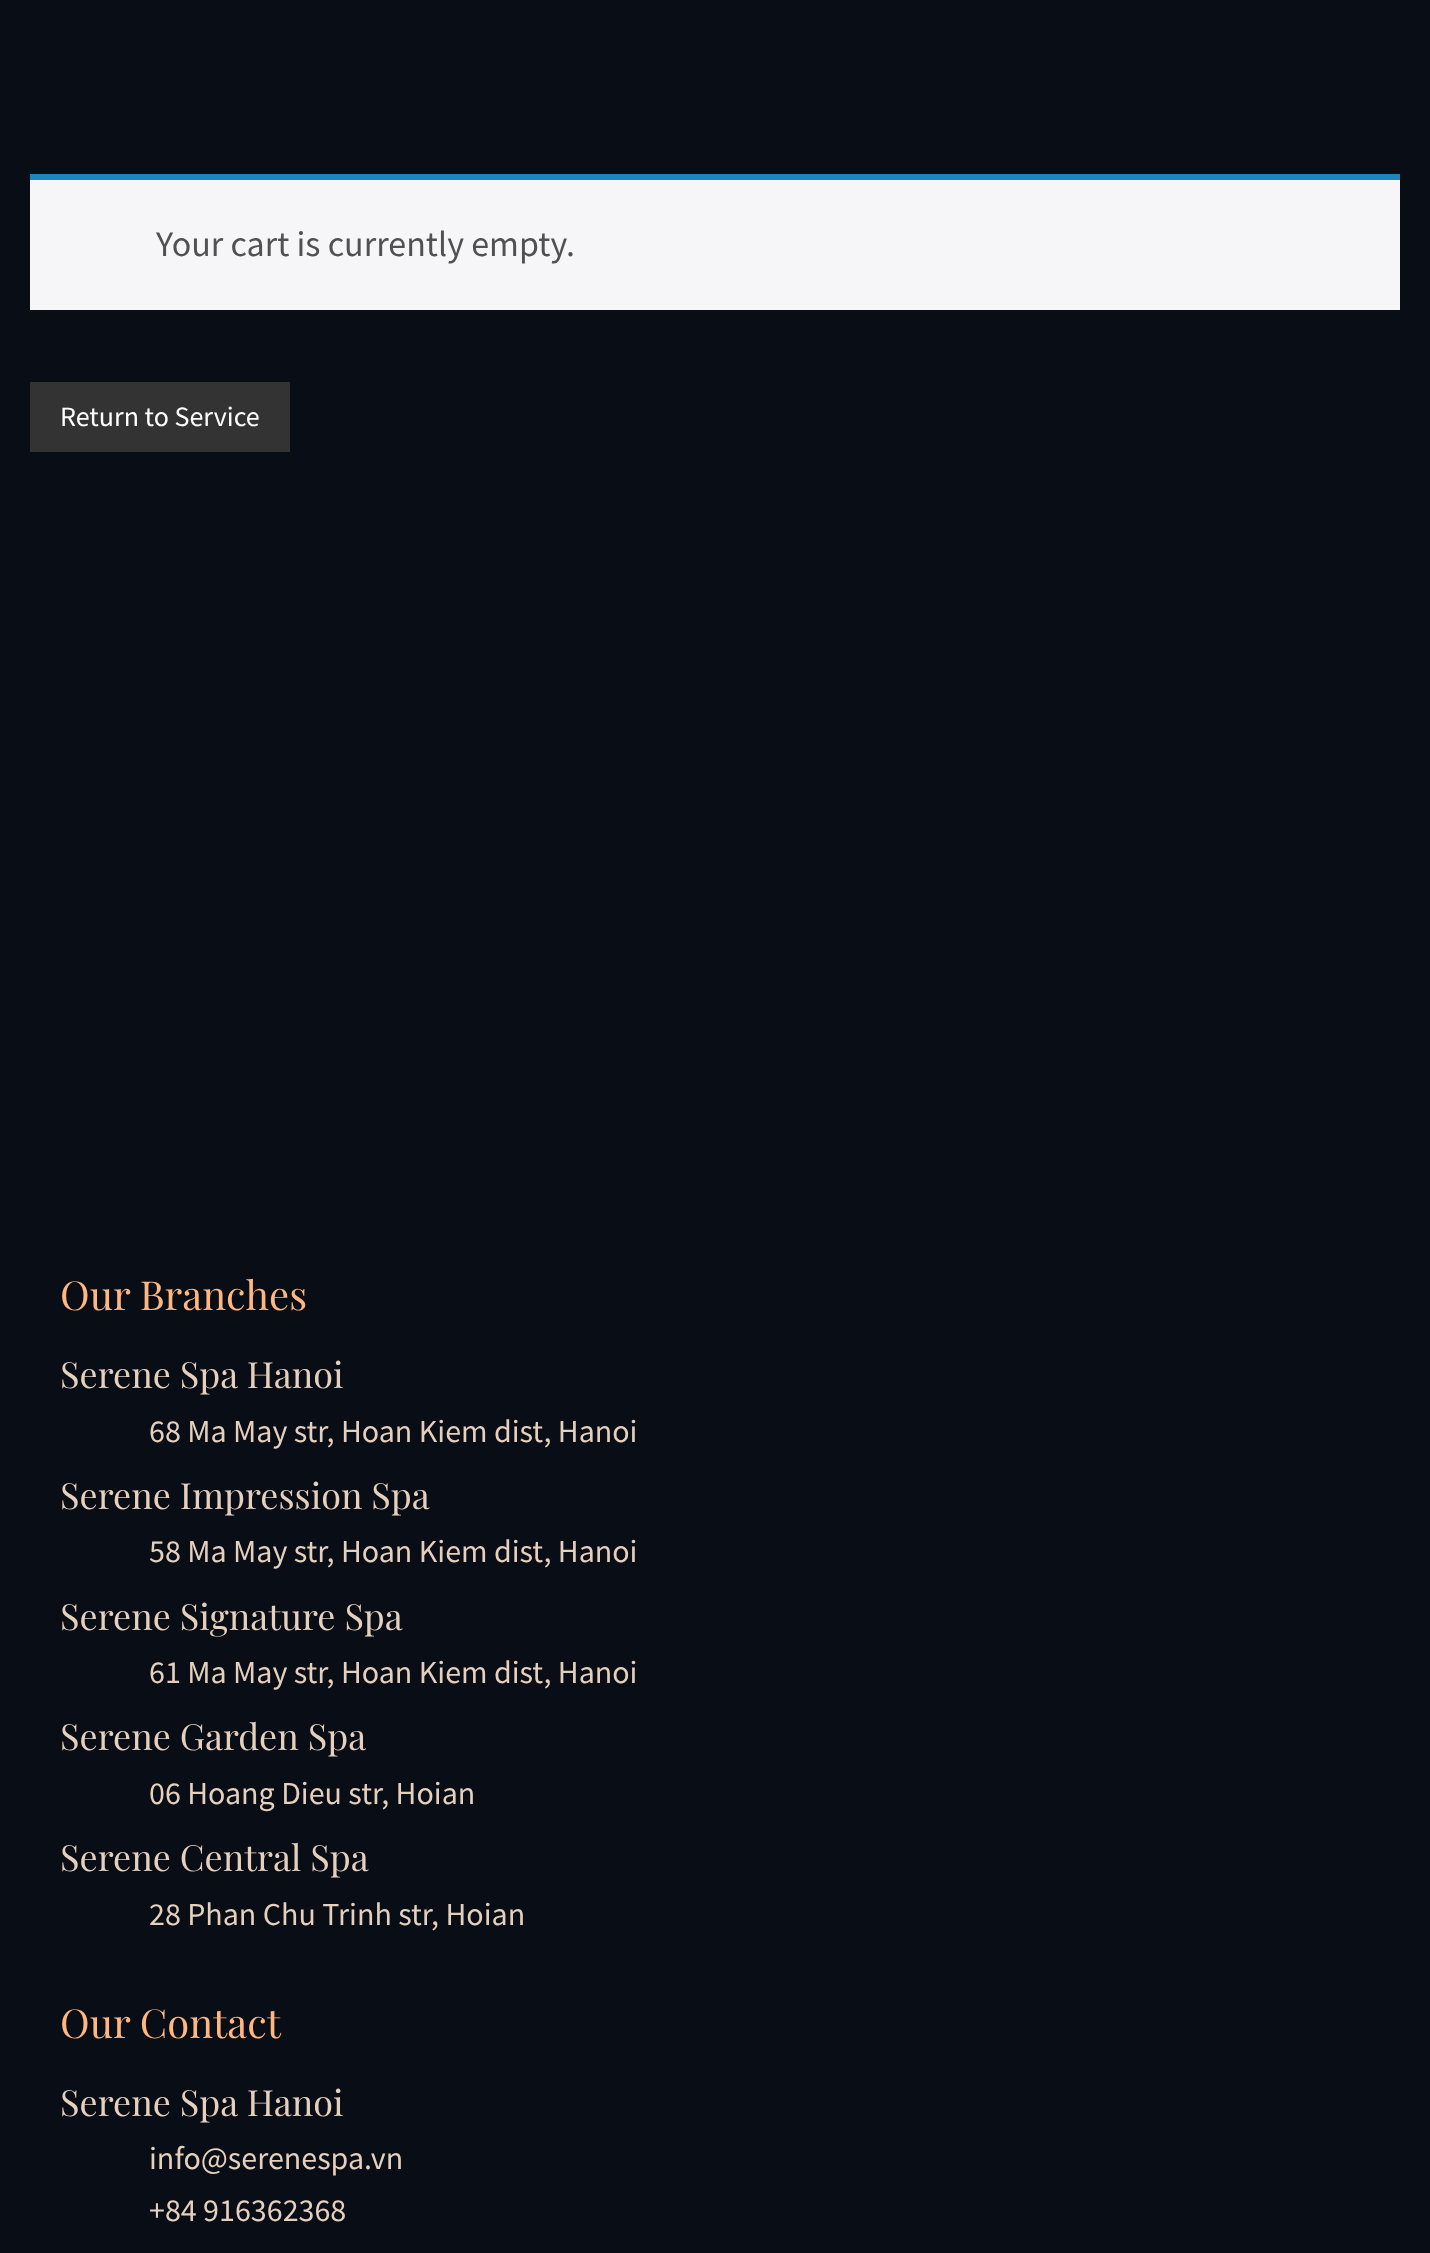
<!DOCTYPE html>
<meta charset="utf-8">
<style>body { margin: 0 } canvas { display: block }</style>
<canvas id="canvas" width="1430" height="2253"></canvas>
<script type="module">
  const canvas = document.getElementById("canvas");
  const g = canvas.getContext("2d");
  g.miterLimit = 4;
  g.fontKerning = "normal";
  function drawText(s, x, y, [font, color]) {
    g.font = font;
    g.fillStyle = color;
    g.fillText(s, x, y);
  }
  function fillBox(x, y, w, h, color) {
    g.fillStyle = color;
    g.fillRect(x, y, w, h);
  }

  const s1 = ["36px Source Sans Pro", "#515151"];
  const s2 = ["28px Source Sans Pro", "#FFFFFF"];
  const s3 = ["40px Playfair Display", "#FFB67F"];
  const s4 = ["36px Playfair Display", "#E5CFBD"];
  const s5 = ["32px Source Sans Pro", "#E5CFBD"];

  fillBox(0, 0, 1430, 2253, "#080D16");
  fillBox(30, 180, 1370, 130, "#F6F5F8");
  fillBox(30, 174, 1370, 6, "#1E85BE");
  drawText("Your cart is currently empty.", 156, 256, s1);
  fillBox(30, 382, 260, 70, "#333333");
  drawText("Return to Service", 60, 426, s2);
  drawText("Our Branches", 60, 1310, s3);
  drawText("Serene Spa Hanoi", 60, 1388, s4);
  drawText("68 Ma May str, Hoan Kiem dist, Hanoi", 149, 1442, s5);
  drawText("Serene Impression Spa", 60, 1509, s4);
  drawText("58 Ma May str, Hoan Kiem dist, Hanoi", 149, 1562, s5);
  drawText("Serene Signature Spa", 60, 1630, s4);
  drawText("61 Ma May str, Hoan Kiem dist, Hanoi", 149, 1683, s5);
  drawText("Serene Garden Spa", 60, 1750, s4);
  drawText("06 Hoang Dieu str, Hoian", 149, 1804, s5);
  drawText("Serene Central Spa", 60, 1871, s4);
  drawText("28 Phan Chu Trinh str, Hoian", 149, 1925, s5);
  drawText("Our Contact", 60, 2038, s3);
  drawText("Serene Spa Hanoi", 60, 2116, s4);
  drawText("info@serenespa.vn", 149, 2169, s5);
  drawText("+84 916362368", 149, 2221, s5);
</script>
